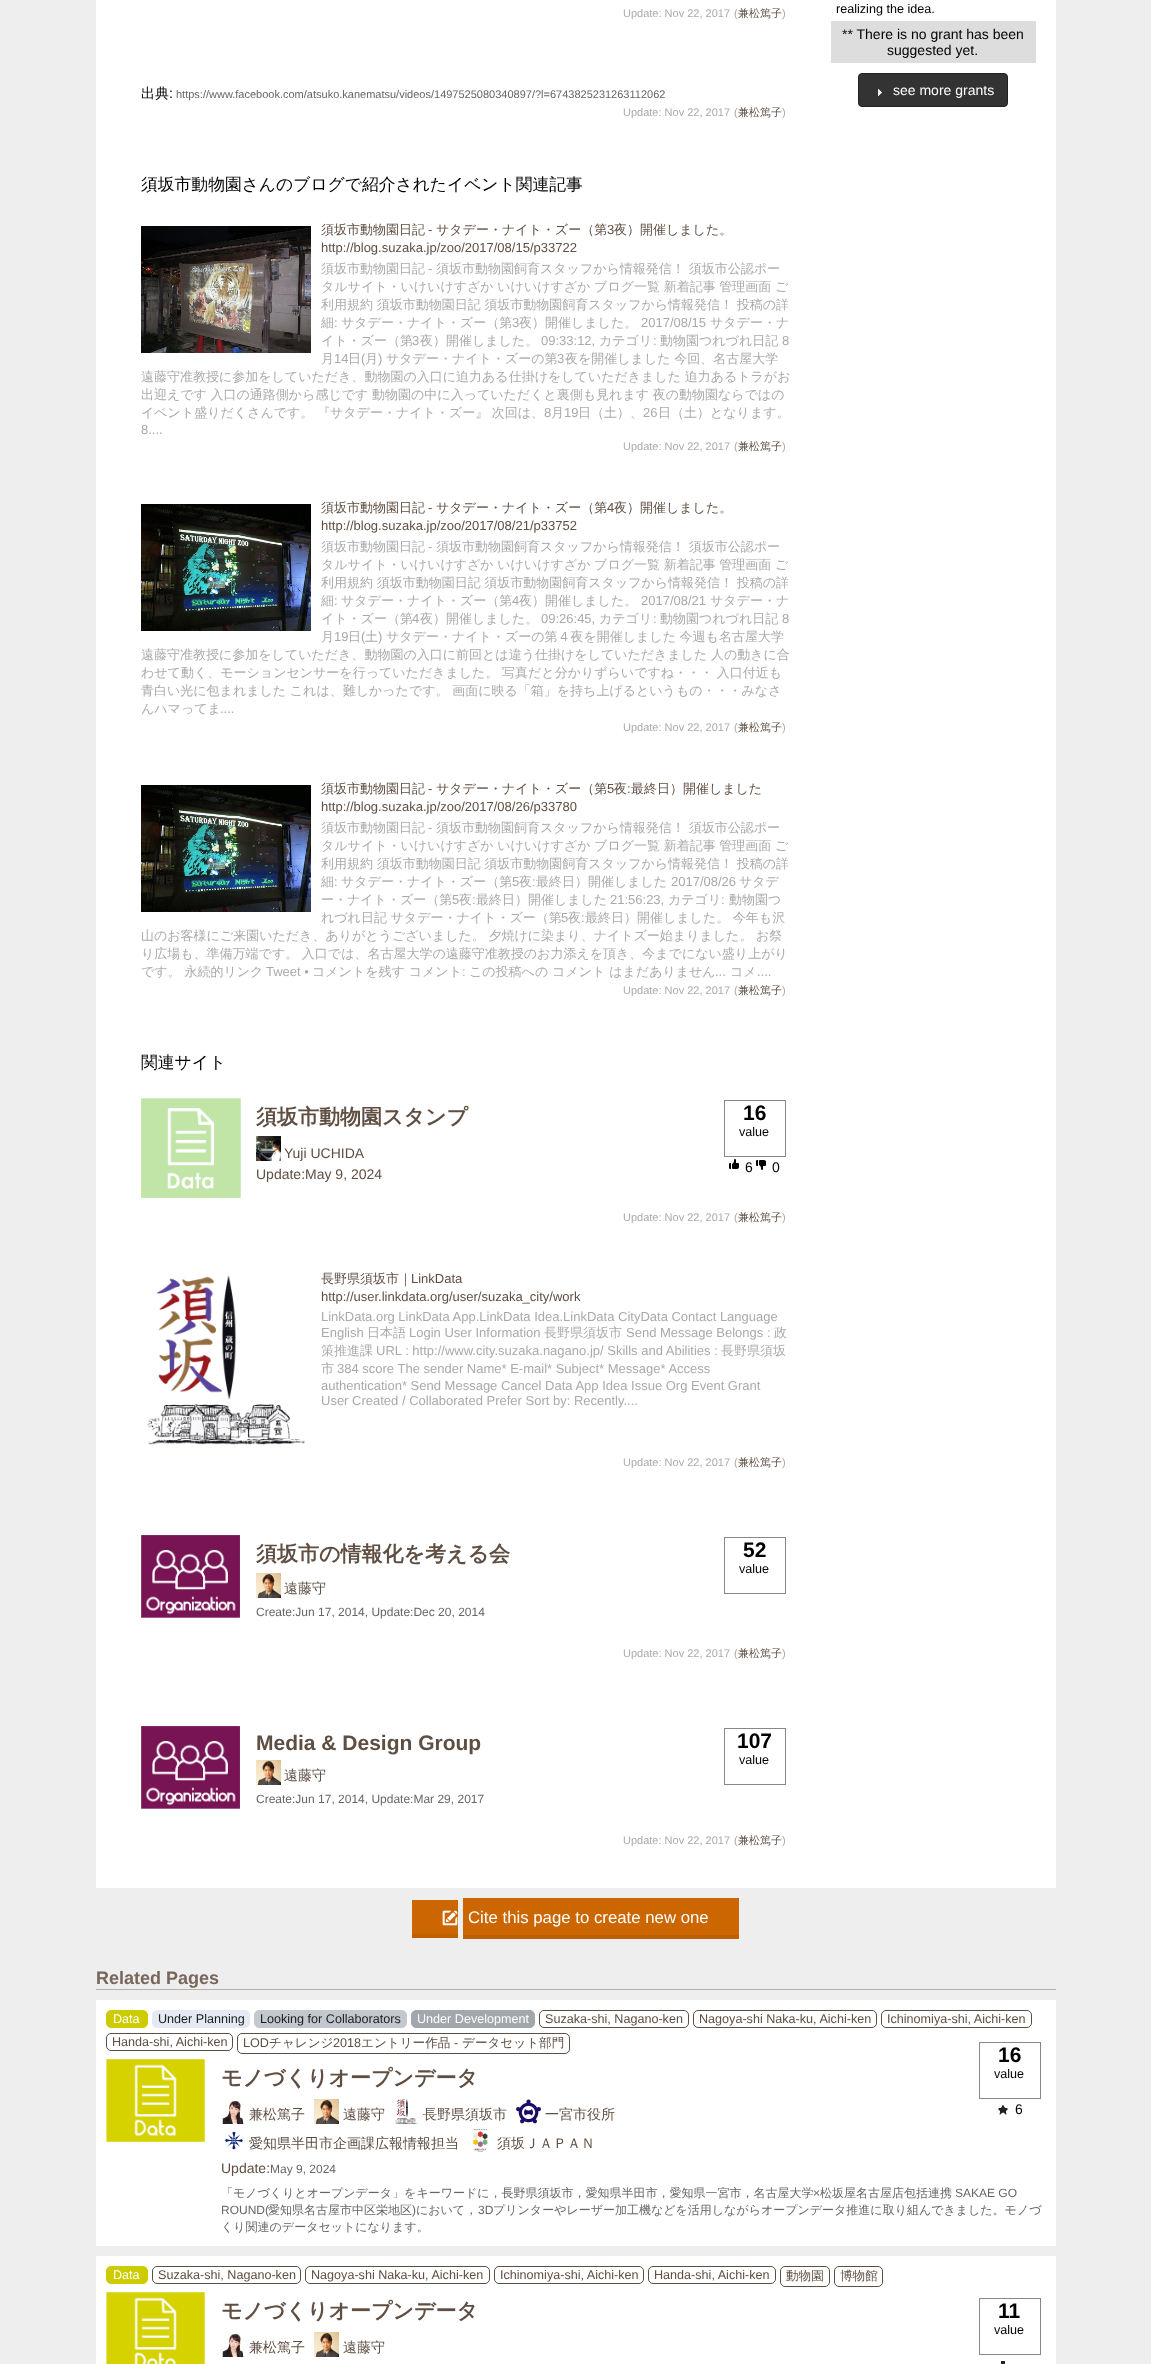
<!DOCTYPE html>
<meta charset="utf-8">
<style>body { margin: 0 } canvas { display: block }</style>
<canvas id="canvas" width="1151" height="2364"></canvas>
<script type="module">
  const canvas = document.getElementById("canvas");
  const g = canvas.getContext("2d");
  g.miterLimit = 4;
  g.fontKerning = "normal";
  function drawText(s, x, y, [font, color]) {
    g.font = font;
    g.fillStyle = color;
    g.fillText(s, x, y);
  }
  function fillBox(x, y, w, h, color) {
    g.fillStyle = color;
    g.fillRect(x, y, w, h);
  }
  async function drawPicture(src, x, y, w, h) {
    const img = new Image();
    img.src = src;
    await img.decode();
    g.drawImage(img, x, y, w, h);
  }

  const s1 = ["11px Liberation Sans", "#AAAAAA"];
  const s2 = ["500 11px WenQuanYi Zen Hei", "#5F4E42"];
  const s3 = ["500 14px WenQuanYi Zen Hei", "#000000"];
  const s4 = ["14px Liberation Sans", "#000000"];
  const s5 = ["11px Liberation Sans", "#666666"];
  const s6 = ["500 16.8px WenQuanYi Zen Hei", "#000000"];
  const s7 = ["500 13px WenQuanYi Zen Hei", "#5F4E42"];
  const s8 = ["13px Liberation Sans", "#5F4E42"];
  const s9 = ["500 13px WenQuanYi Zen Hei", "#AAAAAA"];
  const s10 = ["13px Liberation Sans", "#AAAAAA"];
  const s11 = ["bold 21px WenQuanYi Zen Hei", "#5F4E42"];
  const s12 = ["14px Liberation Sans", "#5F4E42"];
  const s13 = ["bold 21px Liberation Sans", "#000000"];
  const s14 = ["12.6px Liberation Sans", "#000000"];
  const s15 = ["500 14px WenQuanYi Zen Hei", "#5F4E42"];
  const s16 = ["12px Liberation Sans", "#666666"];
  const s17 = ["bold 21px Liberation Sans", "#5F4E42"];
  const s18 = ["14px Liberation Sans", "#FFFFFF"];
  const s19 = ["16.8px Liberation Sans", "#FFFFFF"];
  const s20 = ["bold 18px Liberation Sans", "#77665C"];
  const s21 = ["12.6px Liberation Sans", "#FFFFFF"];
  const s22 = ["12.6px Liberation Sans", "#1D1D1D"];
  const s23 = ["12.6px Liberation Sans", "#5F4E42"];
  const s24 = ["500 12.6px WenQuanYi Zen Hei", "#5F4E42"];
  const s25 = ["500 12px WenQuanYi Zen Hei", "#666666"];

  fillBox(0, 0, 1151, 2364, "#EEEEEE");
  fillBox(96, 0, 960, 1888, "#FFFFFF");
  drawText("Update: Nov 22, 2017", 623, 17, s1);
  drawText("(", 734, 17, s1);
  drawText("兼松篤子", 738, 17, s2);
  drawText(")", 782, 17, s1);
  drawText("出典", 141, 98, s3);
  drawText(":", 169, 98, s4);
  drawText("https://www.facebook.com/atsuko.kanematsu/videos/1497525080340897/?l=6743825231263112062", 176, 98, s5);
  drawText("Update: Nov 22, 2017", 623, 116, s1);
  drawText("(", 734, 116, s1);
  drawText("兼松篤子", 738, 116, s2);
  drawText(")", 782, 116, s1);
  drawText("須坂市動物園さんのブログで紹介されたイベント関連記事", 141, 190, s6);
  await drawPicture("pic1.png", 141, 226, 170, 127);
  drawText("須坂市動物園日記", 321, 234, s7);
  drawText("-", 428, 234, s8);
  drawText("サタデー・ナイト・ズー（第", 436, 234, s7);
  drawText("3", 607, 234, s8);
  drawText("夜）開催しました。", 614, 234, s7);
  drawText("http://blog.suzaka.jp/zoo/2017/08/15/p33722", 321, 252, s8);
  drawText("須坂市動物園日記", 321, 273, s9);
  drawText("-", 428, 273, s10);
  drawText("須坂市動物園飼育スタッフから情報発信！ 須坂市公認ポー", 436, 273, s9);
  g.wordSpacing = "-0.25px";
  drawText("タルサイト・いけいけすざか いけいけすざか ブログ一覧 新着記事 管理画面 ご", 321, 291, s9);
  drawText("利用規約 須坂市動物園日記 須坂市動物園飼育スタッフから情報発信！ 投稿の詳", 321, 309, s9);
  g.wordSpacing = "0px";
  drawText("細", 321, 327, s9);
  drawText(":", 334, 327, s10);
  drawText("サタデー・ナイト・ズー（第", 341, 327, s9);
  drawText("3", 512, 327, s10);
  drawText("夜）開催しました。", 519, 327, s9);
  drawText("2017/08/15", 641, 327, s10);
  drawText("サタデー・ナ", 710, 327, s9);
  drawText("イト・ズー（第", 321, 345, s9);
  drawText("3", 412, 345, s10);
  drawText("夜）開催しました。", 420, 345, s9);
  drawText("09:33:12,", 541, 345, s10);
  drawText("カテゴリ", 599, 345, s9);
  drawText(":", 653, 345, s10);
  drawText("動物園つれづれ日記", 660, 345, s9);
  drawText("8", 782, 345, s10);
  drawText("月", 321, 363, s9);
  drawText("14", 334, 363, s10);
  drawText("日", 348, 363, s9);
  drawText("(", 361, 363, s10);
  drawText("月", 365, 363, s9);
  drawText(")", 378, 363, s10);
  drawText("サタデー・ナイト・ズーの第", 386, 363, s9);
  drawText("3", 557, 363, s10);
  g.wordSpacing = "-0.25px";
  drawText("夜を開催しました 今回、名古屋大学", 565, 363, s9);
  drawText("遠藤守准教授に参加をしていただき、動物園の入口に迫力ある仕掛けをしていただきました 迫力あるトラがお", 141, 381, s9);
  drawText("出迎えです 入口の通路側から感じです 動物園の中に入っていただくと裏側も見れます 夜の動物園ならではの", 141, 399, s9);
  drawText("イベント盛りだくさんです。 『サタデー・ナイト・ズー』 次回は、", 141, 417, s9);
  g.wordSpacing = "0px";
  drawText("8", 544, 417, s10);
  drawText("月", 551, 417, s9);
  drawText("19", 564, 417, s10);
  drawText("日（土）、", 578, 417, s9);
  drawText("26", 643, 417, s10);
  drawText("日（土）となります。", 658, 417, s9);
  drawText("8....", 141, 434, s10);
  drawText("Update: Nov 22, 2017", 623, 450, s1);
  drawText("(", 734, 450, s1);
  drawText("兼松篤子", 738, 450, s2);
  drawText(")", 782, 450, s1);
  await drawPicture("pic2.png", 141, 504, 170, 127);
  drawText("須坂市動物園日記", 321, 512, s7);
  drawText("-", 428, 512, s8);
  drawText("サタデー・ナイト・ズー（第", 436, 512, s7);
  drawText("4", 607, 512, s8);
  drawText("夜）開催しました。", 614, 512, s7);
  drawText("http://blog.suzaka.jp/zoo/2017/08/21/p33752", 321, 530, s8);
  drawText("須坂市動物園日記", 321, 551, s9);
  drawText("-", 428, 551, s10);
  drawText("須坂市動物園飼育スタッフから情報発信！ 須坂市公認ポー", 436, 551, s9);
  g.wordSpacing = "-0.25px";
  drawText("タルサイト・いけいけすざか いけいけすざか ブログ一覧 新着記事 管理画面 ご", 321, 569, s9);
  drawText("利用規約 須坂市動物園日記 須坂市動物園飼育スタッフから情報発信！ 投稿の詳", 321, 587, s9);
  g.wordSpacing = "0px";
  drawText("細", 321, 605, s9);
  drawText(":", 334, 605, s10);
  drawText("サタデー・ナイト・ズー（第", 341, 605, s9);
  drawText("4", 512, 605, s10);
  drawText("夜）開催しました。", 519, 605, s9);
  drawText("2017/08/21", 641, 605, s10);
  drawText("サタデー・ナ", 710, 605, s9);
  drawText("イト・ズー（第", 321, 623, s9);
  drawText("4", 412, 623, s10);
  drawText("夜）開催しました。", 420, 623, s9);
  drawText("09:26:45,", 541, 623, s10);
  drawText("カテゴリ", 599, 623, s9);
  drawText(":", 653, 623, s10);
  drawText("動物園つれづれ日記", 660, 623, s9);
  drawText("8", 782, 623, s10);
  drawText("月", 321, 641, s9);
  drawText("19", 334, 641, s10);
  drawText("日", 348, 641, s9);
  drawText("(", 361, 641, s10);
  drawText("土", 365, 641, s9);
  drawText(")", 378, 641, s10);
  g.wordSpacing = "-0.25px";
  drawText("サタデー・ナイト・ズーの第４夜を開催しました 今週も名古屋大学", 386, 641, s9);
  drawText("遠藤守准教授に参加をしていただき、動物園の入口に前回とは違う仕掛けをしていただきました 人の動きに合", 141, 659, s9);
  drawText("わせて動く、モーションセンサーを行っていただきました。 写真だと分かりずらいですね・・・ 入口付近も", 141, 677, s9);
  drawText("青白い光に包まれました これは、難しかったです。 画面に映る「箱」を持ち上げるというもの・・・みなさ", 141, 695, s9);
  g.wordSpacing = "0px";
  drawText("んハマってま", 141, 713, s9);
  drawText("....", 220, 713, s10);
  drawText("Update: Nov 22, 2017", 623, 731, s1);
  drawText("(", 734, 731, s1);
  drawText("兼松篤子", 738, 731, s2);
  drawText(")", 782, 731, s1);
  await drawPicture("pic2.png", 141, 785, 170, 127);
  drawText("須坂市動物園日記", 321, 793, s7);
  drawText("サタデー・ナイト・ズー（第", 436, 793, s7);
  drawText("5", 607, 793, s8);
  drawText("夜 最終日）開催しました", 614, 793, s7);
  drawText("-", 428, 793, s8);
  drawText(":", 627, 793, s8);
  drawText("http://blog.suzaka.jp/zoo/2017/08/26/p33780", 321, 811, s8);
  drawText("須坂市動物園日記", 321, 832, s9);
  drawText("-", 428, 832, s10);
  drawText("須坂市動物園飼育スタッフから情報発信！ 須坂市公認ポー", 436, 832, s9);
  g.wordSpacing = "-0.25px";
  drawText("タルサイト・いけいけすざか いけいけすざか ブログ一覧 新着記事 管理画面 ご", 321, 850, s9);
  drawText("利用規約 須坂市動物園日記 須坂市動物園飼育スタッフから情報発信！ 投稿の詳", 321, 868, s9);
  g.wordSpacing = "0px";
  drawText("細", 321, 886, s9);
  drawText(":", 334, 886, s10);
  drawText("サタデー・ナイト・ズー（第", 341, 886, s9);
  drawText("5", 512, 886, s10);
  drawText("夜 最終日）開催しました", 519, 886, s9);
  drawText("2017/08/26", 671, 886, s10);
  drawText("サタデ", 739, 886, s9);
  drawText(":", 532, 886, s10);
  drawText("ー・ナイト・ズー（第", 321, 904, s9);
  drawText("5", 452, 904, s10);
  drawText("夜 最終日）開催しました", 459, 904, s9);
  drawText("21:56:23,", 610, 904, s10);
  drawText("カテゴリ", 668, 904, s9);
  drawText("動物園つ", 729, 904, s9);
  drawText(":", 472, 904, s10);
  drawText(":", 721, 904, s10);
  g.wordSpacing = "-0.25px";
  drawText("れづれ日記 サタデー・ナイト・ズー（第", 321, 922, s9);
  g.wordSpacing = "0px";
  drawText("5", 561, 922, s10);
  drawText("夜", 568, 922, s9);
  drawText(":", 581, 922, s10);
  g.wordSpacing = "-0.25px";
  drawText("最終日）開催しました。 今年も沢", 585, 922, s9);
  drawText("山のお客様にご来園いただき、ありがとうございました。 夕焼けに染まり、ナイトズー始まりました。 お祭", 141, 940, s9);
  drawText("り広場も、準備万端です。 入口では、名古屋大学の遠藤守准教授のお力添えを頂き、今までにない盛り上がり", 141, 958, s9);
  g.wordSpacing = "0px";
  drawText("です。 永続的リンク", 141, 976, s9);
  drawText("Tweet •", 266, 976, s10);
  drawText("コメントを残す コメント", 312, 976, s9);
  drawText(":", 462, 976, s10);
  drawText("この投稿への コメント はまだありません", 469, 976, s9);
  drawText("...", 715, 976, s10);
  drawText("コメ", 730, 976, s9);
  drawText("....", 757, 976, s10);
  drawText("Update: Nov 22, 2017", 623, 994, s1);
  drawText("(", 734, 994, s1);
  drawText("兼松篤子", 738, 994, s2);
  drawText(")", 782, 994, s1);
  drawText("関連サイト", 141, 1068, s6);
  await drawPicture("pic3.png", 141, 1098, 100, 100);
  drawText("須坂市動物園スタンプ", 256, 1124, s11);
  await drawPicture("pic4.png", 256, 1136, 25, 25);
  drawText("Yuji UCHIDA", 284, 1158, s12);
  drawText("Update:May 9, 2024", 256, 1179, s12);
  g.strokeStyle = "#888888";
  g.strokeRect(724.5, 1100.5, 61, 56);
  drawText("16", 743, 1120, s13);
  drawText("value", 739, 1136, s14);
  await drawPicture("pic5.png", 729, 1159, 10, 10);
  drawText("6", 745, 1172, s4);
  await drawPicture("pic6.png", 756, 1160, 10, 10);
  drawText("0", 772, 1172, s4);
  drawText("Update: Nov 22, 2017", 623, 1221, s1);
  drawText("(", 734, 1221, s1);
  drawText("兼松篤子", 738, 1221, s2);
  drawText(")", 782, 1221, s1);
  await drawPicture("pic7.png", 147, 1275, 158, 170);
  drawText("長野県須坂市｜", 321, 1283, s7);
  drawText("LinkData", 411, 1283, s8);
  drawText("http://user.linkdata.org/user/suzaka_city/work", 321, 1301, s8);
  drawText("LinkData.org LinkData App.LinkData Idea.LinkData CityData Contact Language", 321, 1321, s10);
  drawText("English", 321, 1337, s10);
  drawText("日本語", 367, 1337, s9);
  drawText("Login User Information", 409, 1337, s10);
  drawText("長野県須坂市", 544, 1337, s9);
  drawText("Send Message Belongs :", 626, 1337, s10);
  drawText("政", 774, 1337, s9);
  drawText("策推進課", 321, 1355, s9);
  drawText("URL : http://www.city.suzaka.nagano.jp/ Skills and Abilities :", 376, 1355, s10);
  drawText("長野県須坂", 721, 1355, s9);
  drawText("市", 321, 1373, s9);
  drawText("384 score The sender Name* E-mail* Subject* Message* Access", 337, 1373, s10);
  drawText("authentication* Send Message Cancel Data App Idea Issue Org Event Grant", 321, 1390, s10);
  drawText("User Created / Collaborated Prefer Sort by: Recently....", 321, 1405, s10);
  drawText("Update: Nov 22, 2017", 623, 1466, s1);
  drawText("(", 734, 1466, s1);
  drawText("兼松篤子", 738, 1466, s2);
  drawText(")", 782, 1466, s1);
  await drawPicture("pic8.png", 141, 1535, 99, 83);
  drawText("須坂市の情報化を考える会", 256, 1561, s11);
  await drawPicture("pic9.png", 256, 1573, 25, 25);
  drawText("遠藤守", 284, 1593, s15);
  drawText("Create:Jun 17, 2014, Update:Dec 20, 2014", 256, 1616, s16);
  g.strokeRect(724.5, 1537.5, 61, 56);
  drawText("52", 743, 1557, s13);
  drawText("value", 739, 1573, s14);
  drawText("Update: Nov 22, 2017", 623, 1657, s1);
  drawText("(", 734, 1657, s1);
  drawText("兼松篤子", 738, 1657, s2);
  drawText(")", 782, 1657, s1);
  await drawPicture("pic8.png", 141, 1726, 99, 83);
  drawText("Media & Design Group", 256, 1750, s17);
  await drawPicture("pic9.png", 256, 1760, 25, 25);
  drawText("遠藤守", 284, 1780, s15);
  drawText("Create:Jun 17, 2014, Update:Mar 29, 2017", 256, 1803, s16);
  g.strokeRect(724.5, 1728.5, 61, 56);
  drawText("107", 737, 1748, s13);
  drawText("value", 739, 1764, s14);
  drawText("Update: Nov 22, 2017", 623, 1844, s1);
  drawText("(", 734, 1844, s1);
  drawText("兼松篤子", 738, 1844, s2);
  drawText(")", 782, 1844, s1);
  drawText("realizing the idea.", 836, 13, s14);
  fillBox(831, 21, 205, 42, "#DDDDDD");
  drawText("** There is no grant has been", 842, 39, s4);
  drawText("suggested yet.", 887, 55, s4);
  g.fillStyle = "#333333";
  g.beginPath();
  g.roundRect(858.5, 73.5, 149, 33, 3.5);
  g.fill();
  g.strokeStyle = "#222222";
  g.stroke();
  await drawPicture("pic10.png", 878, 89, 4, 7);
  drawText("see more grants", 893, 95, s18);
  fillBox(412, 1900, 46, 34, "#CC6600");
  fillBox(412, 1934, 46, 4, "#BF6000");
  fillBox(463, 1898, 276, 37, "#CC6600");
  fillBox(463, 1935, 276, 4, "#BF6000");
  await drawPicture("pic11.png", 442, 1910, 16, 16);
  drawText("Cite this page to create new one", 468, 1923, s19);
  fillBox(96, 1989, 960, 1, "#BAAEA7");
  drawText("Related Pages", 96, 1984, s20);
  fillBox(96, 2000, 960, 246, "#FFFFFF");
  g.fillStyle = "#CCCC00";
  g.beginPath();
  g.roundRect(106.5, 2010.5, 41, 17, 4.5);
  g.fill();
  g.strokeStyle = "#CCCC00";
  g.stroke();
  drawText("Data", 113, 2023, s21);
  g.fillStyle = "#E4E9F3";
  g.beginPath();
  g.roundRect(152.5, 2010.5, 97, 17, 4.5);
  g.fill();
  g.strokeStyle = "#E4E9F3";
  g.stroke();
  drawText("Under Planning", 158, 2023, s22);
  g.fillStyle = "#C3C8CF";
  g.beginPath();
  g.roundRect(254.5, 2010.5, 152, 17, 4.5);
  g.fill();
  g.strokeStyle = "#C3C8CF";
  g.stroke();
  drawText("Looking for Collaborators", 260, 2023, s22);
  g.fillStyle = "#A2A7AB";
  g.beginPath();
  g.roundRect(411.5, 2010.5, 123, 17, 4.5);
  g.fill();
  g.strokeStyle = "#A2A7AB";
  g.stroke();
  drawText("Under Development", 417, 2023, s21);
  g.beginPath();
  g.roundRect(539.5, 2010.5, 149, 17, 4.5);
  g.strokeStyle = "#5F4E42";
  g.stroke();
  drawText("Suzaka-shi, Nagano-ken", 545, 2023, s23);
  g.beginPath();
  g.roundRect(693.5, 2010.5, 183, 17, 4.5);
  g.stroke();
  drawText("Nagoya-shi Naka-ku, Aichi-ken", 699, 2023, s23);
  g.beginPath();
  g.roundRect(881.5, 2010.5, 150, 17, 4.5);
  g.stroke();
  drawText("Ichinomiya-shi, Aichi-ken", 887, 2023, s23);
  g.beginPath();
  g.roundRect(106.5, 2033.5, 126, 17, 4.5);
  g.stroke();
  drawText("Handa-shi, Aichi-ken", 112, 2046, s23);
  g.beginPath();
  g.roundRect(237.5, 2033.5, 332, 20, 4.5);
  g.stroke();
  drawText("LOD", 243, 2047, s23);
  drawText("チャレンジ", 269, 2047, s24);
  drawText("2018", 333, 2047, s23);
  drawText("エントリー作品", 361, 2047, s24);
  drawText("-", 454, 2047, s23);
  drawText("データセット部門", 462, 2047, s24);
  await drawPicture("pic12.png", 106, 2059, 99, 83);
  g.strokeStyle = "#888888";
  g.strokeRect(979.5, 2042.5, 61, 56);
  drawText("16", 998, 2062, s13);
  drawText("value", 994, 2078, s14);
  await drawPicture("pic13.png", 998, 2105, 10, 10);
  drawText("6", 1015, 2114, s4);
  drawText("モノづくりオープンデータ", 221, 2085, s11);
  await drawPicture("pic14.png", 222, 2099, 22, 25);
  drawText("兼松篤子", 249, 2119, s15);
  await drawPicture("pic9.png", 314, 2099, 25, 25);
  drawText("遠藤守", 343, 2119, s15);
  await drawPicture("pic15.png", 395, 2099, 23, 25);
  drawText("長野県須坂市", 423, 2119, s15);
  await drawPicture("pic16.png", 516, 2099, 25, 25);
  drawText("一宮市役所", 545, 2119, s15);
  await drawPicture("pic17.png", 225, 2131, 18, 19);
  drawText("愛知県半田市企画課広報情報担当", 249, 2148, s15);
  await drawPicture("pic18.png", 473, 2129, 15, 23);
  drawText("須坂ＪＡＰＡＮ", 497, 2148, s15);
  drawText("Update:", 221, 2173, s12);
  drawText("May 9, 2024", 270, 2173, s16);
  drawText("「モノづくりとオープンデータ」をキーワードに，長野県須坂市，愛知県半田市，愛知県一宮市，名古屋大学", 221, 2197, s25);
  drawText("×", 813, 2197, s16);
  drawText("松坂屋名古屋店包括連携", 820, 2197, s25);
  drawText("SAKAE GO", 955, 2197, s16);
  drawText("ROUND(", 221, 2214, s16);
  drawText("愛知県名古屋市中区栄地区", 268, 2214, s25);
  drawText(")", 412, 2214, s16);
  drawText("において，", 416, 2214, s25);
  drawText("3D", 478, 2214, s16);
  drawText("プリンターやレーザー加工機などを活用しながらオープンデータ推進に取り組んできました。モノづ", 493, 2214, s25);
  drawText("くり関連のデータセットになります。", 221, 2231, s25);
  fillBox(96, 2256, 960, 108, "#FFFFFF");
  g.fillStyle = "#CCCC00";
  g.beginPath();
  g.roundRect(106.5, 2266.5, 41, 17, 4.5);
  g.fill();
  g.strokeStyle = "#CCCC00";
  g.stroke();
  drawText("Data", 113, 2279, s21);
  g.beginPath();
  g.roundRect(152.5, 2266.5, 148, 17, 4.5);
  g.strokeStyle = "#5F4E42";
  g.stroke();
  drawText("Suzaka-shi, Nagano-ken", 158, 2279, s23);
  g.beginPath();
  g.roundRect(305.5, 2266.5, 184, 17, 4.5);
  g.stroke();
  drawText("Nagoya-shi Naka-ku, Aichi-ken", 311, 2279, s23);
  g.beginPath();
  g.roundRect(494.5, 2266.5, 149, 17, 4.5);
  g.stroke();
  drawText("Ichinomiya-shi, Aichi-ken", 500, 2279, s23);
  g.beginPath();
  g.roundRect(648.5, 2266.5, 127, 17, 4.5);
  g.stroke();
  drawText("Handa-shi, Aichi-ken", 654, 2279, s23);
  g.beginPath();
  g.roundRect(780.5, 2266.5, 49, 20, 4.5);
  g.stroke();
  drawText("動物園", 786, 2280, s24);
  g.beginPath();
  g.roundRect(834.5, 2266.5, 48, 20, 4.5);
  g.stroke();
  drawText("博物館", 840, 2280, s24);
  await drawPicture("pic19.png", 106, 2292, 99, 72);
  drawText("モノづくりオープンデータ", 221, 2318, s11);
  await drawPicture("pic14.png", 222, 2332, 22, 25);
  drawText("兼松篤子", 249, 2352, s15);
  await drawPicture("pic9.png", 314, 2332, 25, 25);
  drawText("遠藤守", 343, 2352, s15);
  g.strokeStyle = "#888888";
  g.strokeRect(979.5, 2298.5, 61, 56);
  drawText("11", 998, 2318, s13);
  drawText("value", 994, 2334, s14);
  fillBox(1001, 2361, 4, 3, "#222222");
</script>
